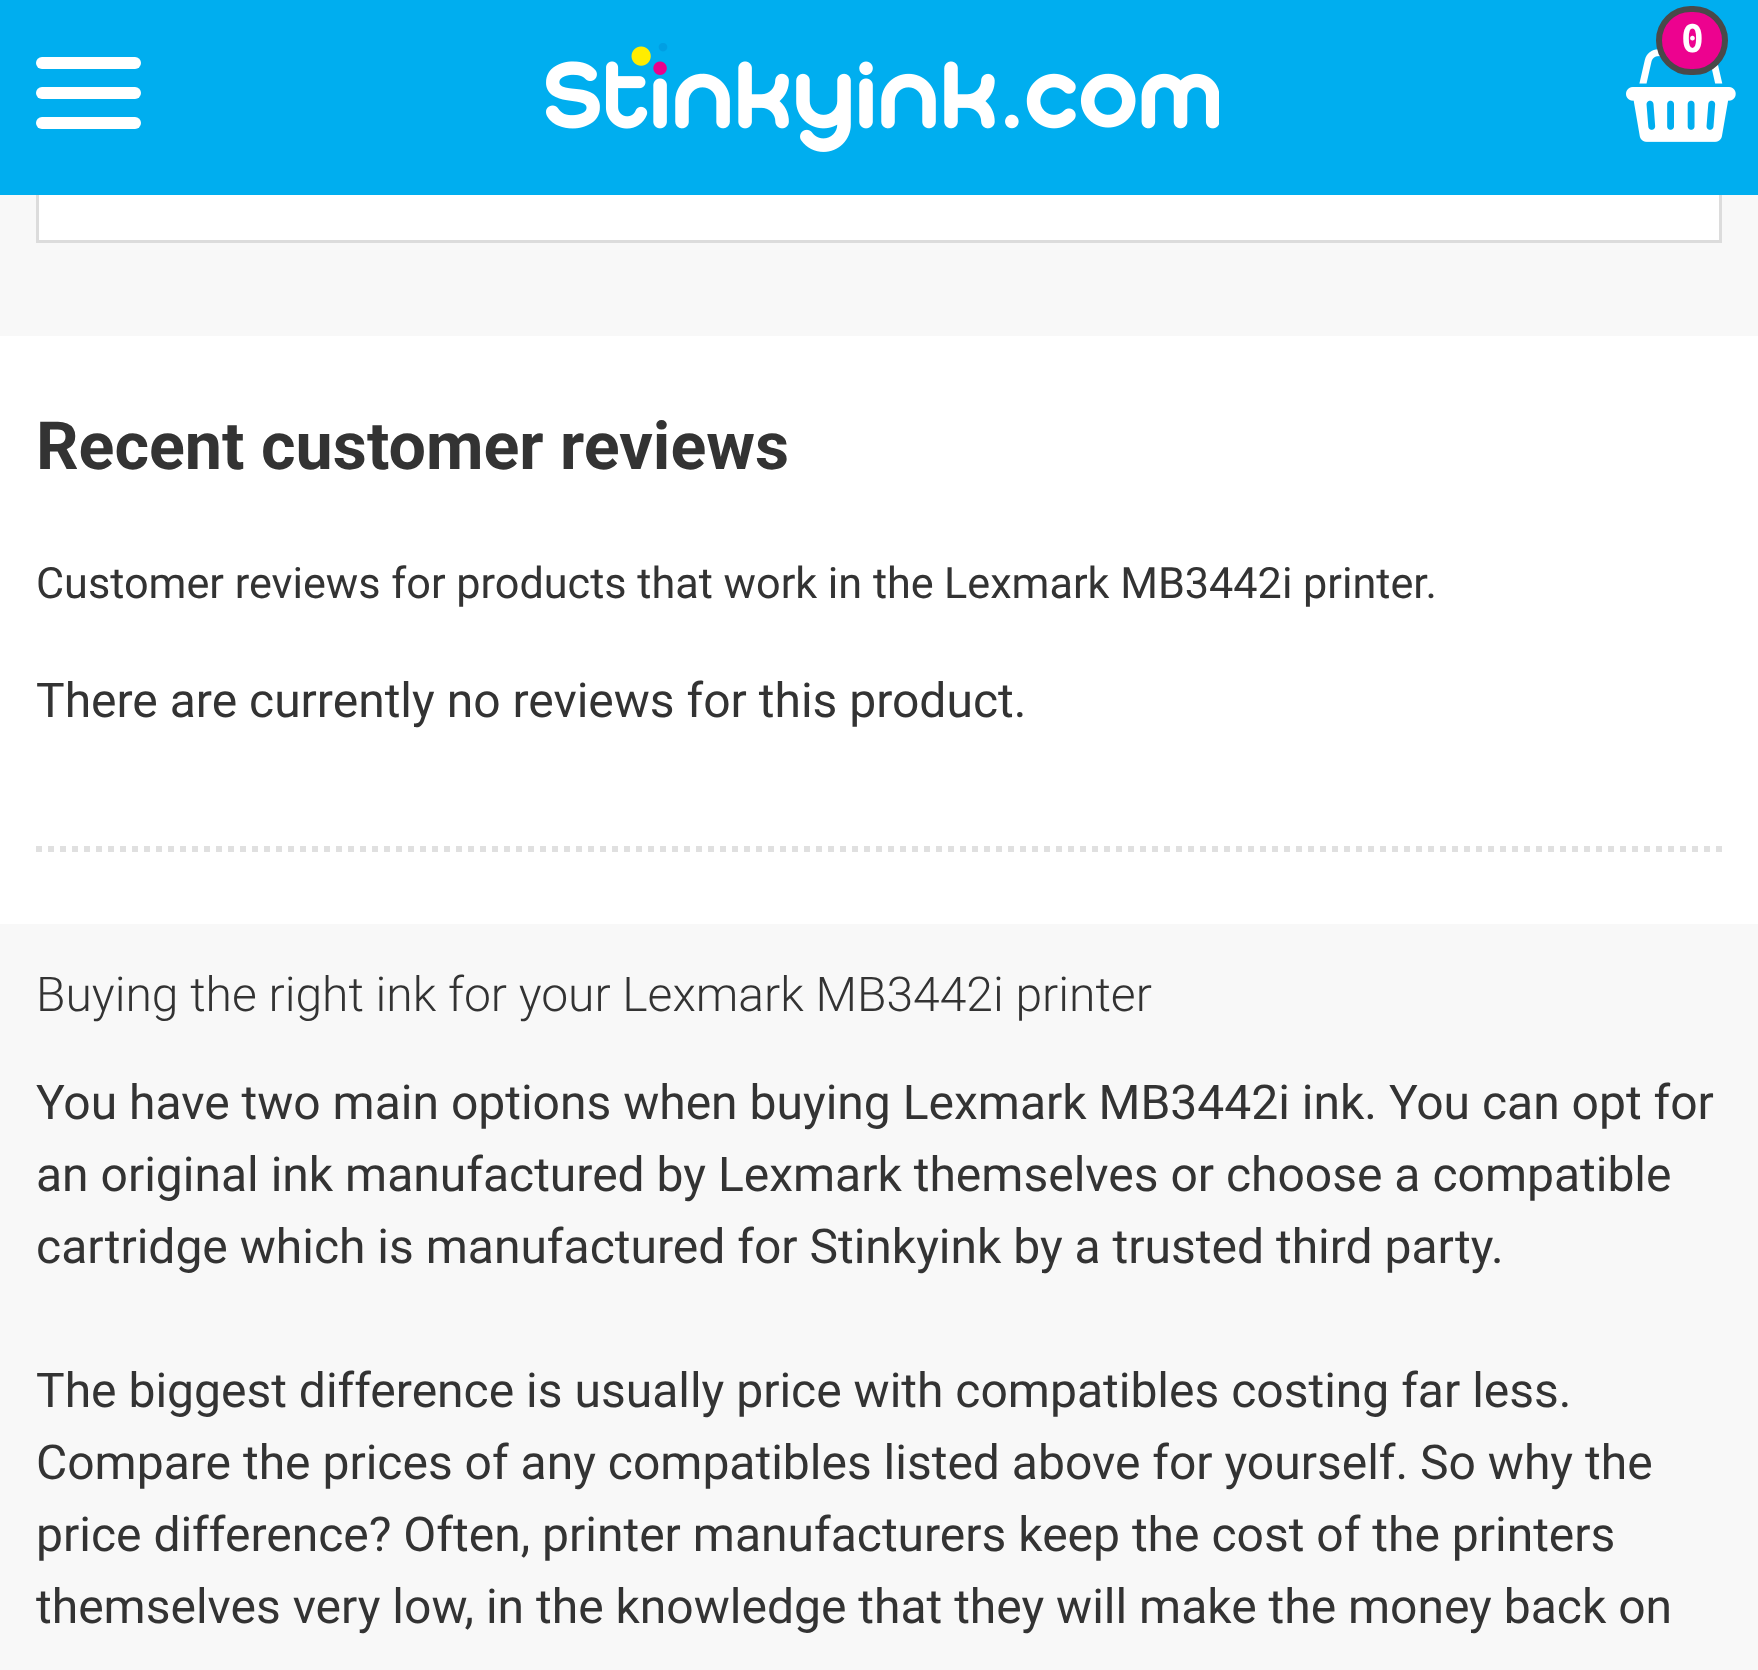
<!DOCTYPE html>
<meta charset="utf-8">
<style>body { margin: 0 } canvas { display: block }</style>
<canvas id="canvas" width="1758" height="1670"></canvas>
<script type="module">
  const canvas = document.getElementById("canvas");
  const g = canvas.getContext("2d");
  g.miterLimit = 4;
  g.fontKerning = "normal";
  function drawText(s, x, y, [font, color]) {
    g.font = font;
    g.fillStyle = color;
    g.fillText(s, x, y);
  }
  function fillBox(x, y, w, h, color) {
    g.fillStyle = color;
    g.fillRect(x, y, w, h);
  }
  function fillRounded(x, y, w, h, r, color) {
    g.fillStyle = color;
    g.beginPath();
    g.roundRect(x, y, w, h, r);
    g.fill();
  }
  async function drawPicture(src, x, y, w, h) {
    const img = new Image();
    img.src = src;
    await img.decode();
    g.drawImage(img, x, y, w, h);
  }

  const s1 = ["bold 38px DejaVu Sans Mono", "#FFFFFF"];
  const s2 = ["bold 66.4px Roboto", "#333333"];
  const s3 = ["43.2px Roboto", "#333333"];
  const s4 = ["48px Roboto", "#333333"];
  const s5 = ["300 48px Roboto", "#333333"];

  fillBox(0, 0, 1758, 1670, "#FFFFFF");
  fillBox(0, 195, 1758, 141, "#F8F8F8");
  fillBox(39, 195, 1680, 45, "#FFFFFF");
  g.strokeStyle = "#DCDCDC";
  g.lineWidth = 3;
  g.strokeRect(37.5, -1.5, 1683, 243);
  fillBox(0, 0, 1758, 195, "#00AEEF");
  await drawPicture("pic1.png", 1626, 49, 110, 93);
  g.fillStyle = "#ED028F";
  g.beginPath();
  g.roundRect(1659, 9, 66, 63, 31.5);
  g.fill();
  g.strokeStyle = "#494949";
  g.lineWidth = 6;
  g.stroke();
  drawText("0", 1681, 52, s1);
  fillRounded(36, 87, 105, 12, 6, "#FFFFFF");
  fillRounded(36, 57, 105, 12, 6, "#FFFFFF");
  fillRounded(36, 117, 105, 12, 6, "#FFFFFF");
  await drawPicture("pic2.png", 546, 43, 673, 109);
  drawText("Recent customer reviews", 36, 469, s2);
  drawText("Customer reviews for products that work in the", 36, 598, s3);
  drawText("Lexmark MB3442i printer.", 944, 598, s3);
  drawText("There are currently no reviews for this product.", 36, 717, s4);
  g.beginPath();
  g.moveTo(36, 849);
  g.lineTo(1722, 849);
  g.strokeStyle = "#E0E0E0";
  g.setLineDash([6, 6]);
  g.stroke();
  fillBox(0, 924, 1758, 746, "#F8F8F8");
  drawText("Buying the right ink for your Lexmark MB3442i printer", 36, 1011, s5);
  drawText("You have two main options when buying Lexmark MB3442i ink. You can opt for", 36, 1119, s4);
  drawText("an original ink manufactured by Lexmark themselves or choose a compatible", 36, 1191, s4);
  drawText("cartridge which is manufactured for Stinkyink by a trusted third party.", 36, 1263, s4);
  drawText("The biggest difference is usually price with compatibles costing far less.", 36, 1407, s4);
  drawText("Compare the prices of any compatibles listed above for yourself. So why the", 36, 1479, s4);
  drawText("price difference? Often, printer manufacturers keep the cost of the printers", 36, 1551, s4);
  drawText("themselves very low, in the knowledge that they will make the money back on", 36, 1623, s4);
</script>
